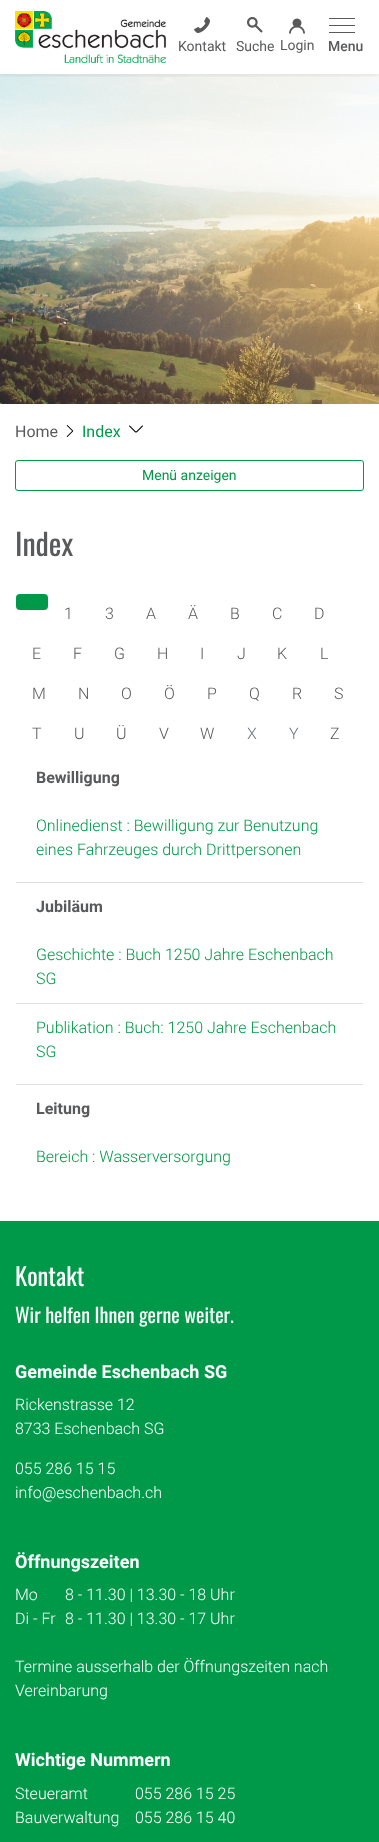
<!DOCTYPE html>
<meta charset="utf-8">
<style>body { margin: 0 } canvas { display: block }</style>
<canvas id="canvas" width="379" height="1842"></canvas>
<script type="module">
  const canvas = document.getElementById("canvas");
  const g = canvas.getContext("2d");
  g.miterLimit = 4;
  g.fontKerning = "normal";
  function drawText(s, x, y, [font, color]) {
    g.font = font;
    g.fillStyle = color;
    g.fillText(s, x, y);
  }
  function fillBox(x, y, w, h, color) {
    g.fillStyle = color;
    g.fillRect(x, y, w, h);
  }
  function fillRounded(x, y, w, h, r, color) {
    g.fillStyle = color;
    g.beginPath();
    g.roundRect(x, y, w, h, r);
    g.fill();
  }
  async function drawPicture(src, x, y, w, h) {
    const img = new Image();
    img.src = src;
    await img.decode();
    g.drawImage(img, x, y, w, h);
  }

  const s1 = ["14px Roboto", "#595A5C"];
  const s2 = ["500 14px Roboto", "#595A5C"];
  const s3 = ["16px Roboto", "#595A5C"];
  const s4 = ["16px Roboto", "#009949"];
  const s5 = ["14px Roboto", "#009949"];
  const s6 = ["30px Oswald", "#595A5C"];
  const s7 = ["300 16px Roboto", "#595A5C"];
  const s8 = ["300 16px Roboto", "#6C757D"];
  const s9 = ["bold 16px Roboto", "#595A5C"];
  const s10 = ["300 16px Roboto", "#009949"];
  const s11 = ["24.5px Oswald", "#FFFFFF"];
  const s12 = ["20px Oswald", "#FFFFFF"];
  const s13 = ["bold 18px Roboto", "#FFFFFF"];
  const s14 = ["300 16px Roboto", "#FFFFFF"];

  fillBox(0, 0, 379, 1842, "#FFFFFF");
  await drawPicture("pic5.png", 0, 74, 379, 330);
  g.save();
  g.beginPath();
  g.rect(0, 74, 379, 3);
  g.clip();
  g.fillStyle = "rgba(0, 0, 0, 0.07)";
  g.filter = "blur(2px)";
  g.beginPath();
  g.rect(0, 2, 379, 74);
  g.fill();
  g.filter = "none";
  g.restore();
  await drawPicture("pic1.png", 15, 11, 151, 52);
  await drawPicture("pic2.png", 194, 17, 16, 16);
  drawText("Kontakt", 178, 51, s1);
  await drawPicture("pic3.png", 247, 17, 16, 16);
  drawText("Suche", 236, 51, s1);
  await drawPicture("pic4.png", 289, 18, 16, 16);
  drawText("Login", 280, 50, s1);
  fillBox(329, 18, 26, 1, "#595959");
  fillBox(329, 25, 26, 1, "#595959");
  fillBox(329, 32, 26, 1, "#595959");
  drawText("Menu", 328, 51, s2);
  drawText("Home", 15, 437, s3);
  await drawPicture("pic6.png", 66, 425, 8, 12);
  drawText("Index", 82, 437, s4);
  await drawPicture("pic7.png", 129, 425, 14, 8);
  g.beginPath();
  g.roundRect(15.5, 460.5, 348, 30, 2.5);
  g.strokeStyle = "#009949";
  g.stroke();
  drawText("Menü anzeigen", 142, 480, s5);
  drawText("Index", 15, 556, s6);
  fillRounded(16, 594, 32, 16, 4, "#009949");
  drawText("1", 64, 619, s7);
  drawText("3", 105, 619, s7);
  drawText("A", 146, 619, s7);
  drawText("Ä", 188, 619, s7);
  drawText("B", 230, 619, s7);
  drawText("C", 272, 619, s7);
  drawText("D", 314, 619, s7);
  drawText("E", 32, 659, s7);
  drawText("F", 73, 659, s7);
  drawText("G", 114, 659, s7);
  drawText("H", 157, 659, s7);
  drawText("I", 200, 659, s7);
  drawText("J", 237, 659, s7);
  drawText("K", 277, 659, s7);
  drawText("L", 320, 659, s7);
  drawText("M", 32, 699, s7);
  drawText("N", 78, 699, s7);
  drawText("O", 121, 699, s7);
  drawText("Ö", 164, 699, s7);
  drawText("P", 207, 699, s7);
  drawText("Q", 249, 699, s7);
  drawText("R", 292, 699, s7);
  drawText("S", 334, 699, s7);
  drawText("T", 32, 739, s7);
  drawText("U", 74, 739, s7);
  drawText("Ü", 116, 739, s7);
  drawText("V", 159, 739, s7);
  drawText("W", 200, 739, s7);
  drawText("X", 247, 739, s8);
  drawText("Y", 289, 739, s8);
  drawText("Z", 330, 739, s7);
  fillBox(16, 882, 347, 1, "#DFDFDF");
  drawText("Bewilligung", 36, 783, s9);
  drawText("Onlinedienst : Bewilligung zur Benutzung", 36, 831, s10);
  drawText("eines Fahrzeuges durch Drittpersonen", 36, 855, s10);
  fillBox(16, 1084, 347, 1, "#DFDFDF");
  drawText("Jubiläum", 36, 912, s9);
  fillBox(16, 1003, 347, 1, "#DFDFDF");
  drawText("Geschichte : Buch 1250 Jahre Eschenbach", 36, 960, s10);
  drawText("SG", 36, 984, s10);
  drawText("Publikation : Buch: 1250 Jahre Eschenbach", 36, 1033, s10);
  drawText("SG", 36, 1057, s10);
  drawText("Leitung", 36, 1114, s9);
  drawText("Bereich : Wasserversorgung", 36, 1162, s10);
  fillBox(0, 1221, 379, 621, "#009949");
  drawText("Kontakt", 15, 1286, s11);
  drawText("Wir helfen Ihnen gerne weiter.", 15, 1323, s12);
  drawText("Gemeinde Eschenbach SG", 15, 1378, s13);
  drawText("Rickenstrasse 12", 15, 1410, s14);
  drawText("8733 Eschenbach SG", 15, 1434, s14);
  drawText("055 286 15 15", 15, 1474, s14);
  drawText("info@eschenbach.ch", 15, 1498, s14);
  drawText("Öffnungszeiten", 15, 1568, s13);
  drawText("Mo", 15, 1600, s14);
  drawText("8 - 11.30 | 13.30 - 18 Uhr", 65, 1600, s14);
  drawText("Di - Fr", 15, 1624, s14);
  drawText("8 - 11.30 | 13.30 - 17 Uhr", 65, 1624, s14);
  drawText("Termine ausserhalb der Öffnungszeiten nach", 15, 1672, s14);
  drawText("Vereinbarung", 15, 1696, s14);
  drawText("Wichtige Nummern", 15, 1766, s13);
  drawText("Steueramt", 15, 1799, s14);
  drawText("055 286 15 25", 135, 1799, s14);
  drawText("Bauverwaltung", 15, 1823, s14);
  drawText("055 286 15 40", 135, 1823, s14);
</script>
